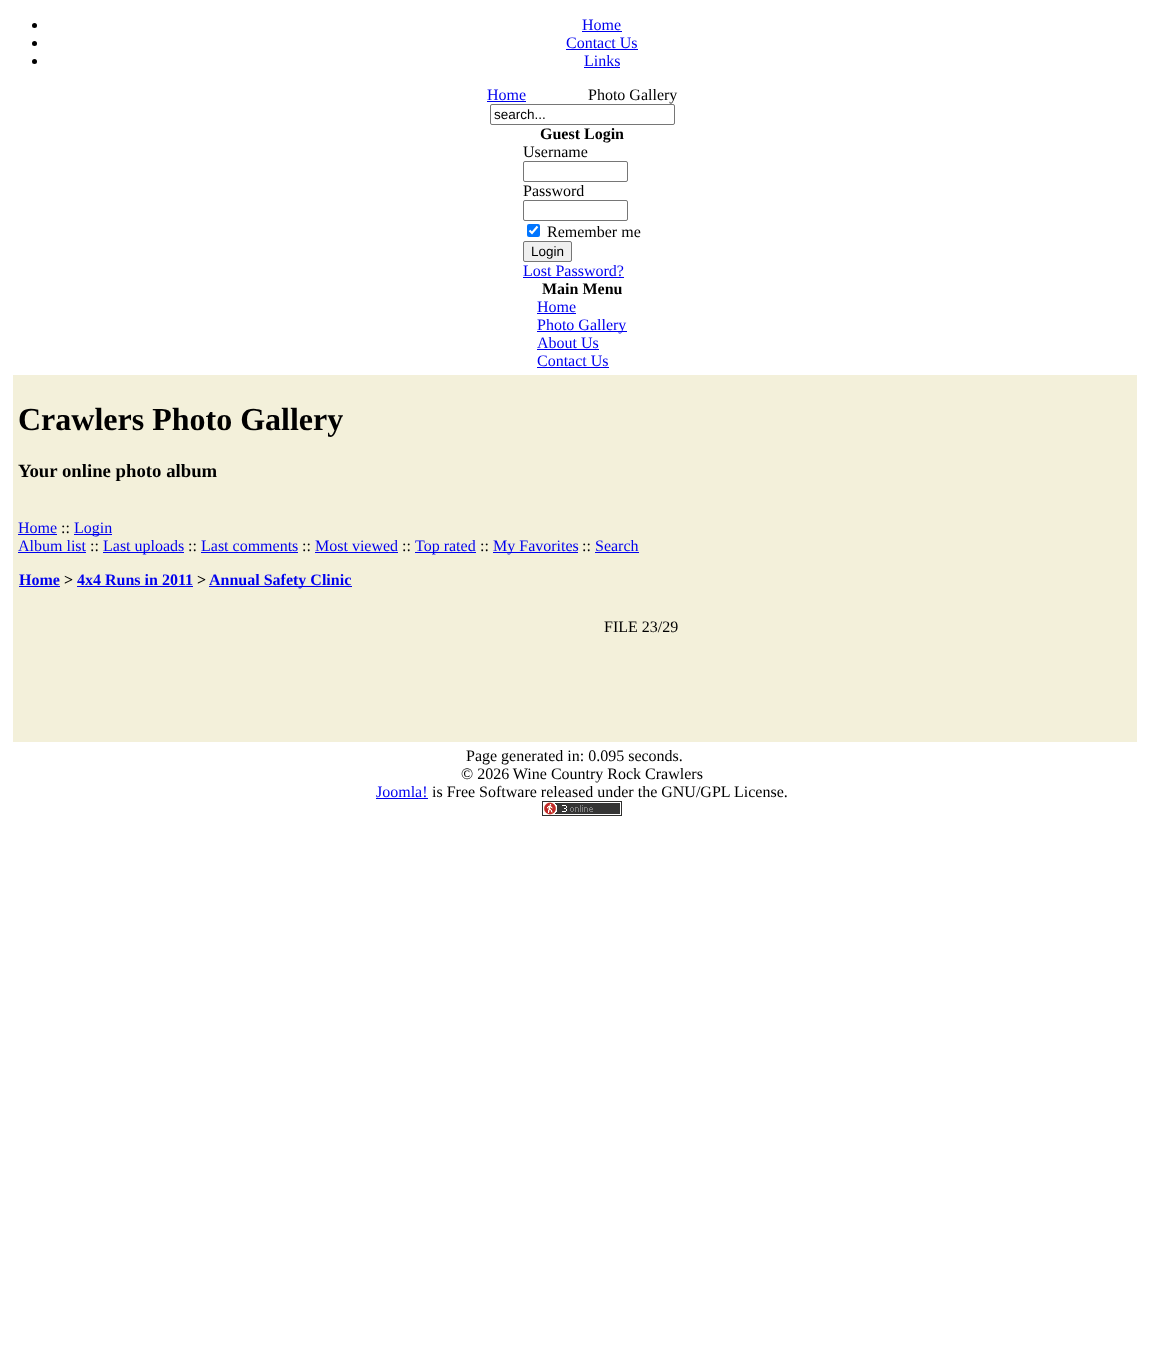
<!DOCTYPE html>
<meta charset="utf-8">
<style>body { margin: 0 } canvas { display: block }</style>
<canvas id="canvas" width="1164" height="1365"></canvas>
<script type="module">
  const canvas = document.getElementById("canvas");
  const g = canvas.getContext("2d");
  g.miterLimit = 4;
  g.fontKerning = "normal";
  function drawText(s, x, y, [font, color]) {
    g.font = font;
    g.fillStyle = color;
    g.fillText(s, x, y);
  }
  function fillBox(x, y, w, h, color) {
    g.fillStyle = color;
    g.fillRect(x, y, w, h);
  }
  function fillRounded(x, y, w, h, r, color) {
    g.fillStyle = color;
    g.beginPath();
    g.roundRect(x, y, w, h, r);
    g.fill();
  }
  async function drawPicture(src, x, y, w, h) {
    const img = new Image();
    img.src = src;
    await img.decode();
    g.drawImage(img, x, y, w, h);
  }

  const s1 = ["16px Liberation Serif", "#0000EE"];
  const s2 = ["16px Liberation Serif", "#000000"];
  const s3 = ["13.5px Liberation Sans", "#000000"];
  const s4 = ["bold 16px Liberation Serif", "#000000"];
  const s5 = ["bold 32px Liberation Serif", "#000000"];
  const s6 = ["bold 18.75px Liberation Serif", "#000000"];
  const s7 = ["bold 16px Liberation Serif", "#0000EE"];

  fillBox(0, 0, 1164, 1365, "#FFFFFF");
  g.fillStyle = "#000000";
  g.beginPath();
  g.arc(34.5, 25.5, 2.5, 0, Math.PI * 2);
  g.fill();
  drawText("Home", 582, 30, s1);
  fillBox(582, 31, 40, 1, "#0000EE");
  g.fillStyle = "#000000";
  g.beginPath();
  g.arc(34.5, 43.5, 2.5, 0, Math.PI * 2);
  g.fill();
  drawText("Contact Us", 566, 48, s1);
  fillBox(566, 49, 72, 1, "#0000EE");
  g.fillStyle = "#000000";
  g.beginPath();
  g.arc(34.5, 61.5, 2.5, 0, Math.PI * 2);
  g.fill();
  drawText("Links", 584, 66, s1);
  fillBox(584, 67, 36, 1, "#0000EE");
  drawText("Home", 487, 100, s1);
  fillBox(487, 101, 39, 1, "#0000EE");
  drawText("Photo Gallery", 588, 100, s2);
  g.beginPath();
  g.roundRect(490.5, 104.5, 184, 20, 1.5);
  g.strokeStyle = "#767676";
  g.stroke();
  drawText("search...", 494, 119, s3);
  drawText("Guest Login", 540, 139, s4);
  drawText("Username", 523, 157, s2);
  g.beginPath();
  g.roundRect(523.5, 161.5, 104, 20, 1.5);
  g.stroke();
  drawText("Password", 523, 196, s2);
  g.beginPath();
  g.roundRect(523.5, 200.5, 104, 20, 1.5);
  g.stroke();
  fillRounded(527, 224, 13, 13, 2, "#0075FF");
  g.beginPath();
  g.moveTo(529.5, 230.5);
  g.lineTo(532, 233);
  g.lineTo(537.5, 226.5);
  g.strokeStyle = "#FFFFFF";
  g.lineWidth = 2.1;
  g.stroke();
  drawText("Remember me", 547, 237, s2);
  g.fillStyle = "#EFEFEF";
  g.beginPath();
  g.roundRect(523.5, 241.5, 48, 20, 1.5);
  g.fill();
  g.strokeStyle = "#767676";
  g.lineWidth = 1;
  g.stroke();
  drawText("Login", 531, 256, s3);
  drawText("Lost Password?", 523, 276, s1);
  fillBox(523, 277, 101, 1, "#0000EE");
  drawText("Main Menu", 542, 294, s4);
  drawText("Home", 537, 312, s1);
  fillBox(537, 313, 39, 1, "#0000EE");
  fillBox(537, 331, 90, 1, "#0000EE");
  drawText("Photo Gallery", 537, 330, s1);
  drawText("About Us", 537, 348, s1);
  fillBox(537, 349, 62, 1, "#0000EE");
  drawText("Contact Us", 537, 366, s1);
  fillBox(537, 367, 72, 1, "#0000EE");
  fillBox(13, 375, 1124, 367, "#F3F0DA");
  drawText("Crawlers Photo Gallery", 18, 430, s5);
  drawText("Your online photo album", 18, 477, s6);
  drawText("Home", 18, 533, s1);
  fillBox(18, 534, 39, 1, "#0000EE");
  drawText("::", 61, 533, s2);
  fillBox(74, 534, 38, 1, "#0000EE");
  drawText("Login", 74, 533, s1);
  drawText("Album list", 18, 551, s1);
  fillBox(18, 552, 68, 1, "#0000EE");
  drawText("::", 90, 551, s2);
  fillBox(103, 552, 81, 1, "#0000EE");
  drawText("Last uploads", 103, 551, s1);
  drawText("::", 188, 551, s2);
  drawText("Last comments", 201, 551, s1);
  fillBox(201, 552, 97, 1, "#0000EE");
  drawText("::", 302, 551, s2);
  drawText("Most viewed", 315, 551, s1);
  fillBox(315, 552, 83, 1, "#0000EE");
  drawText("::", 402, 551, s2);
  fillBox(415, 552, 61, 1, "#0000EE");
  drawText("Top rated", 415, 551, s1);
  drawText("::", 480, 551, s2);
  fillBox(493, 552, 85, 1, "#0000EE");
  drawText("My Favorites", 493, 551, s1);
  drawText("::", 582, 551, s2);
  drawText("Search", 595, 551, s1);
  fillBox(595, 552, 44, 1, "#0000EE");
  drawText("Home", 19, 585, s7);
  fillBox(19, 586, 41, 1, "#0000EE");
  drawText(">", 64, 585, s4);
  drawText("4x4 Runs in 2011", 77, 585, s7);
  fillBox(77, 586, 116, 1, "#0000EE");
  drawText(">", 197, 585, s4);
  fillBox(209, 586, 143, 1, "#0000EE");
  drawText("Annual Safety Clinic", 209, 585, s7);
  drawText("FILE 23/29", 604, 632, s2);
  drawText("Page generated in: 0.095 seconds.", 466, 761, s2);
  drawText("© 2026 Wine Country Rock Crawlers", 461, 779, s2);
  drawText("Joomla!", 376, 797, s1);
  fillBox(376, 798, 52, 1, "#0000EE");
  drawText("is Free Software released under the GNU/GPL License.", 432, 797, s2);
  await drawPicture("pic1.png", 542, 801, 80, 15);
</script>
